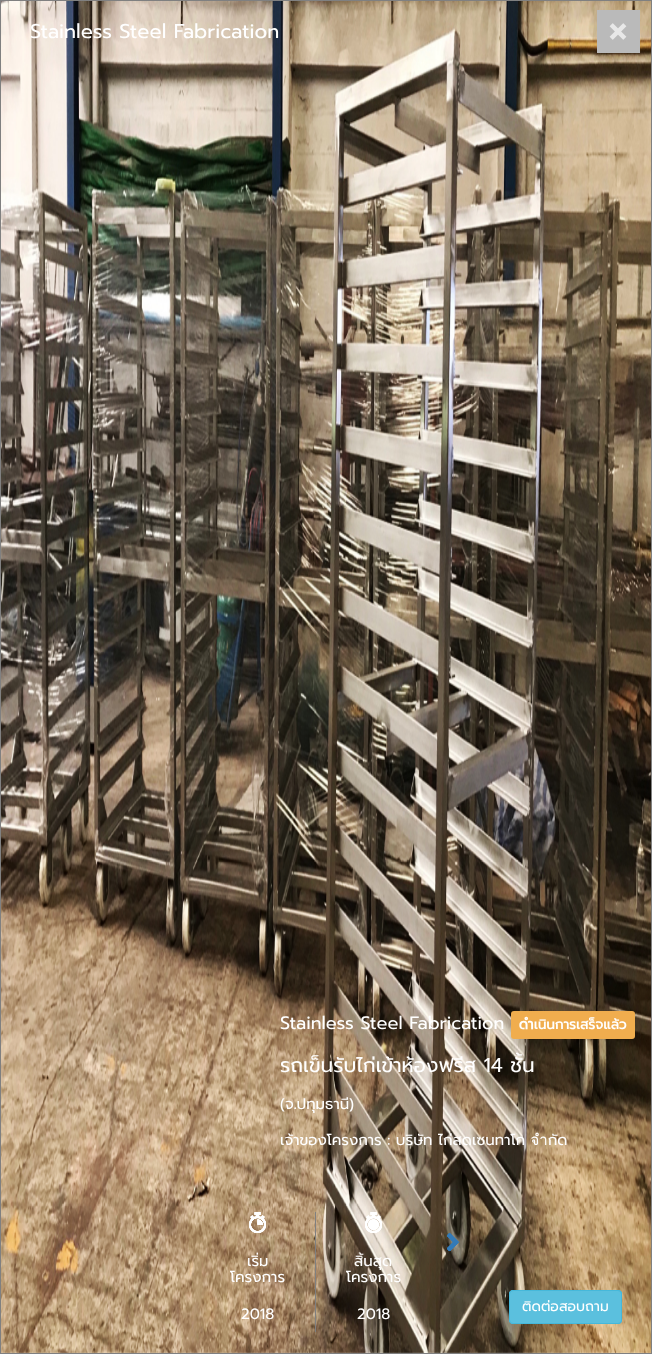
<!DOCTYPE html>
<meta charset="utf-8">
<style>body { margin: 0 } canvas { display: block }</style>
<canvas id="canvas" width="652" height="1354"></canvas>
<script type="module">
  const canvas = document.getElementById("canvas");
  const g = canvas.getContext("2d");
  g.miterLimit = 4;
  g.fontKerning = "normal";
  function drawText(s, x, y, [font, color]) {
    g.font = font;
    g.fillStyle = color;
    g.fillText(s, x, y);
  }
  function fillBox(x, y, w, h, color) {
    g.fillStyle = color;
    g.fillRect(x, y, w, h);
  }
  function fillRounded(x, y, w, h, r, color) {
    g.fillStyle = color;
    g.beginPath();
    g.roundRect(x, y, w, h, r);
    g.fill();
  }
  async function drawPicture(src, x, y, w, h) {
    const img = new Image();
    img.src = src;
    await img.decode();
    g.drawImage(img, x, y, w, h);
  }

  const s1 = ["20px Prompt", "#FFFFFF"];
  const s2 = ["18px Prompt", "#FFFFFF"];
  const s3 = ["15px Prompt", "#FFFFFF"];
  const s4 = ["bold 13.5px Prompt", "#FFFFFF"];
  const s5 = ["14px Prompt", "#FFFFFF"];

  fillBox(0, 0, 652, 1354, "#FFFFFF");
  g.strokeStyle = "#808080";
  g.strokeRect(0.5, 0.5, 651, 1353);
  await drawPicture("pic2.png", 1, 1, 650, 1352);
  await drawPicture("pic1.png", 597, 10, 43, 43);
  drawText("Stainless Steel Fabrication", 30, 38, s1);
  drawText("Stainless Steel Fabrication", 280, 1029, s2);
  drawText("รถเข็นรับไก่เข้าห้องฟรีส 14 ชั้น", 280, 1072, s1);
  drawText("(จ.ปทุมธานี)", 280, 1109, s3);
  drawText("เจ้าของโครงการ : บริษัท ไก่สดเซนทาโก จำกัด", 280, 1145, s3);
  await drawPicture("pic3.png", 447, 1233, 12, 19);
  await drawPicture("pic4.png", 249, 1212, 17, 21);
  drawText("เริ่ม", 247, 1266, s3);
  drawText("โครงการ", 230, 1282, s3);
  drawText("2018", 241, 1319, s3);
  fillBox(315, 1212, 1, 120, "#808080");
  await drawPicture("pic5.png", 365, 1212, 17, 21);
  drawText("สิ้นสุด", 354, 1266, s3);
  drawText("โครงการ", 346, 1282, s3);
  drawText("2018", 357, 1319, s3);
  g.beginPath();
  g.roundRect(509.5, 1290.5, 112, 33, 3.5);
  g.strokeStyle = "#46B8DA";
  g.stroke();
  fillRounded(511, 1011, 124, 28, 3, "#F0AD4E");
  drawText("ดำเนินการเสร็จแล้ว", 519, 1029, s4);
  await drawPicture("pic9.png", 249, 1212, 17, 21);
  await drawPicture("pic12.png", 249, 1212, 17, 21);
  await drawPicture("pic6.png", 249, 1212, 17, 21);
  await drawPicture("pic10.png", 365, 1212, 17, 21);
  await drawPicture("pic13.png", 365, 1212, 17, 21);
  await drawPicture("pic7.png", 365, 1212, 17, 19);
  await drawPicture("pic11.png", 447, 1233, 12, 19);
  await drawPicture("pic14.png", 447, 1233, 12, 19);
  await drawPicture("pic8.png", 447, 1233, 12, 19);
  g.beginPath();
  g.roundRect(509.5, 1290.5, 112, 33, 3.5);
  g.stroke();
  g.beginPath();
  g.roundRect(509.5, 1290.5, 112, 33, 3.5);
  g.stroke();
  g.fillStyle = "#5BC0DE";
  g.beginPath();
  g.roundRect(509.5, 1290.5, 112, 33, 3.5);
  g.fill();
  g.stroke();
  drawText("ติดต่อสอบถาม", 522, 1311, s5);
  drawText(".", 294, 1109, s3);
</script>
